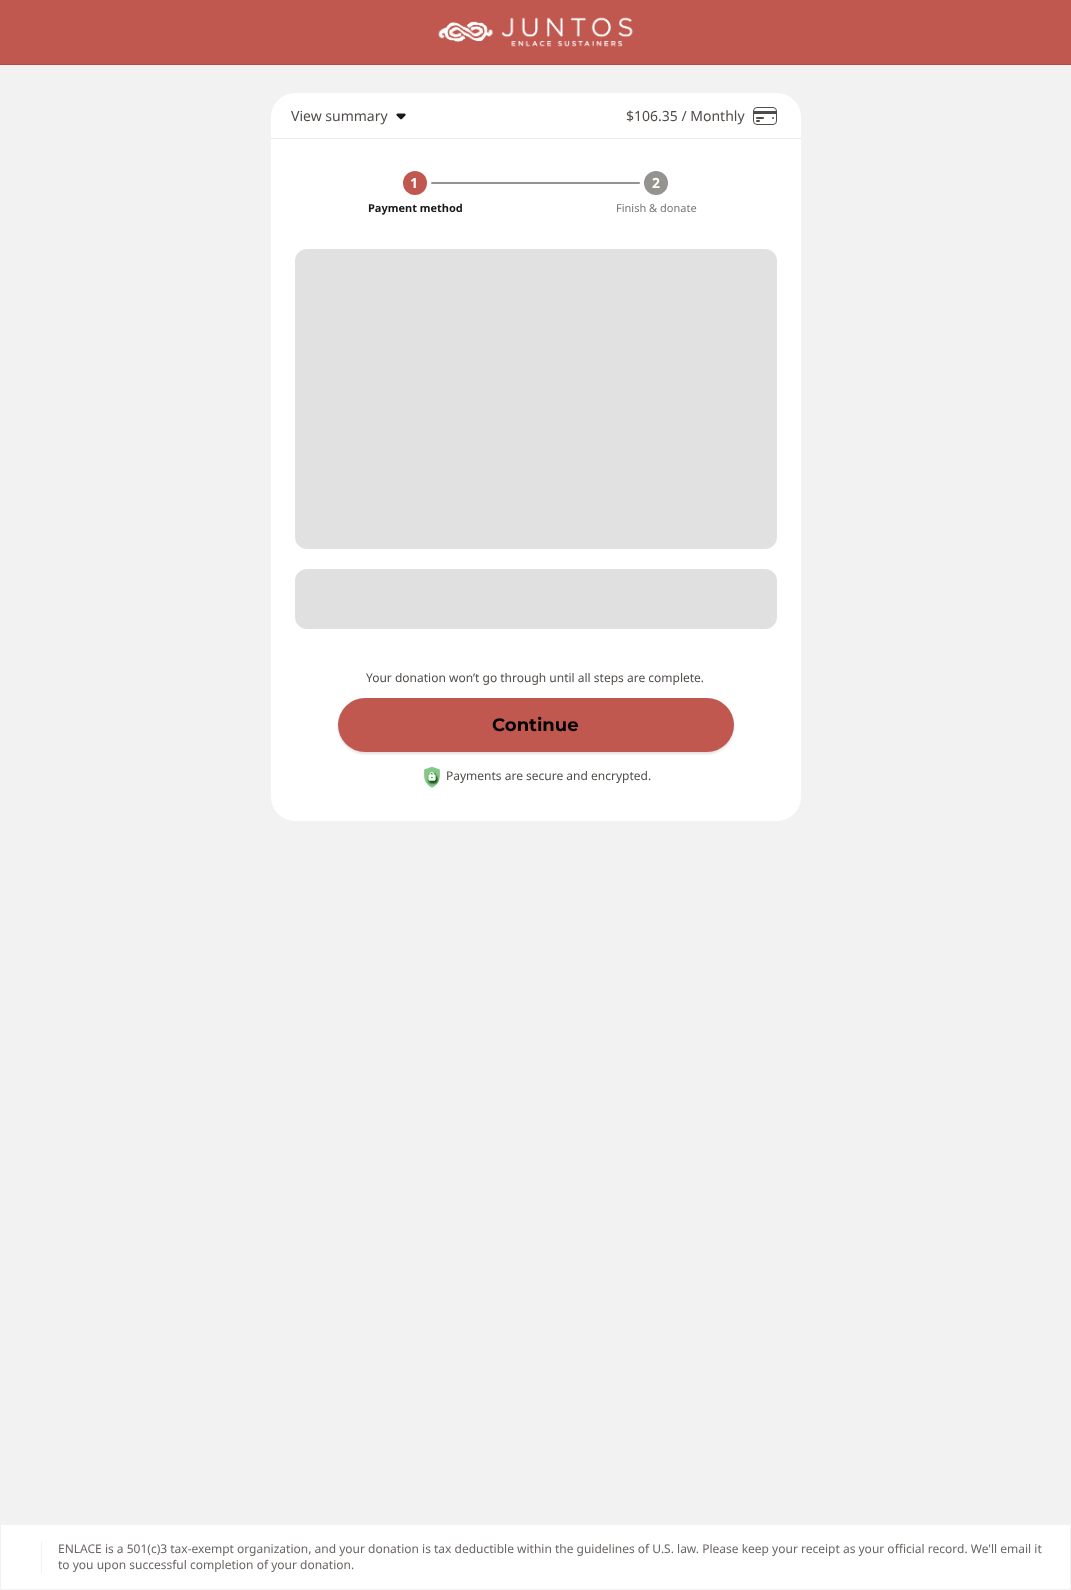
<!DOCTYPE html>
<meta charset="utf-8">
<style>body { margin: 0 } canvas { display: block }</style>
<canvas id="canvas" width="1071" height="1590"></canvas>
<script type="module">
  const canvas = document.getElementById("canvas");
  const g = canvas.getContext("2d");
  g.miterLimit = 4;
  g.fontKerning = "normal";
  function drawText(s, x, y, [font, color]) {
    g.font = font;
    g.fillStyle = color;
    g.fillText(s, x, y);
  }
  function fillBox(x, y, w, h, color) {
    g.fillStyle = color;
    g.fillRect(x, y, w, h);
  }
  function fillRounded(x, y, w, h, r, color) {
    g.fillStyle = color;
    g.beginPath();
    g.roundRect(x, y, w, h, r);
    g.fill();
  }
  async function drawPicture(src, x, y, w, h) {
    const img = new Image();
    img.src = src;
    await img.decode();
    g.drawImage(img, x, y, w, h);
  }

  const s1 = ["14px Noto Sans", "#504C49"];
  const s2 = ["bold 14px Noto Sans", "#FFFFFF"];
  const s3 = ["bold 11px Noto Sans", "#1A1919"];
  const s4 = ["11px Noto Sans", "#787671"];
  const s5 = ["12px Noto Sans", "#504C49"];
  const s6 = ["100 18px Montserrat", "#000000"];
  const s7 = ["12px Noto Sans", "#6A6562"];

  fillBox(0, 0, 1071, 1590, "#F3F2F2");
  fillBox(0, 0, 1071, 64, "#C0584F");
  fillBox(0, 64, 1071, 1, "#AD4F47");
  await drawPicture("pic1.png", 438, 17, 195, 30);
  g.fillStyle = "#FFFFFF";
  g.beginPath();
  g.roundRect(271, 93, 530, 45, [24, 24, 0, 0]);
  g.fill();
  drawText("View summary", 291, 121, s1);
  await drawPicture("pic2.png", 396, 113, 10, 7);
  drawText("$106.35 / Monthly", 626, 121, s1);
  g.beginPath();
  g.roundRect(753.5, 107.5, 23, 17, 3.5);
  g.strokeStyle = "#504C49";
  g.stroke();
  fillBox(753, 111, 24, 3, "#504C49");
  fillRounded(756, 117, 8, 2, 1, "#504C49");
  fillRounded(756, 120, 4, 2, 1, "#504C49");
  g.beginPath();
  g.arc(773, 118, 1, 0, Math.PI * 2);
  g.fill();
  fillBox(271, 138, 530, 1, "#EBEAEA");
  g.fillStyle = "#FFFFFF";
  g.beginPath();
  g.roundRect(271, 139, 530, 682, [0, 0, 24, 24]);
  g.fill();
  g.fillStyle = "#C0584F";
  g.beginPath();
  g.arc(415, 183, 12, 0, Math.PI * 2);
  g.fill();
  drawText("1", 410, 188, s2);
  fillRounded(431, 182, 209, 2, 1, "#95938F");
  g.beginPath();
  g.arc(656, 183, 12, 0, Math.PI * 2);
  g.fill();
  drawText("2", 652, 188, s2);
  drawText("Payment method", 368, 212, s3);
  drawText("Finish & donate", 616, 212, s4);
  fillRounded(295, 249, 482, 300, 12, "#E1E1E1");
  fillRounded(295, 569, 482, 60, 12, "#E0E0E0");
  drawText("Your donation won’t go through until all steps are complete.", 366, 682, s5);
  g.fillStyle = "rgba(0, 0, 0, 0.12)";
  g.filter = "blur(1px)";
  g.beginPath();
  g.roundRect(338, 700, 396, 54, 27);
  g.fill();
  g.filter = "none";
  fillRounded(338, 698, 396, 54, 27, "#C0584F");
  drawText("Continue", 492, 731, s6);
  await drawPicture("pic3.png", 424, 766, 16, 22);
  drawText("Payments are secure and encrypted.", 446, 780, s5);
  fillBox(1, 1525, 1069, 64, "#FFFFFF");
  fillBox(41, 1541, 1, 32, "#F3F2F2");
  drawText("ENLACE is a 501(c)3 tax-exempt organization, and your donation is tax deductible within the guidelines of U.S. law. Please keep your receipt as your official record. We'll email it", 58, 1553, s7);
  drawText("to you upon successful completion of your donation.", 58, 1569, s7);
</script>
